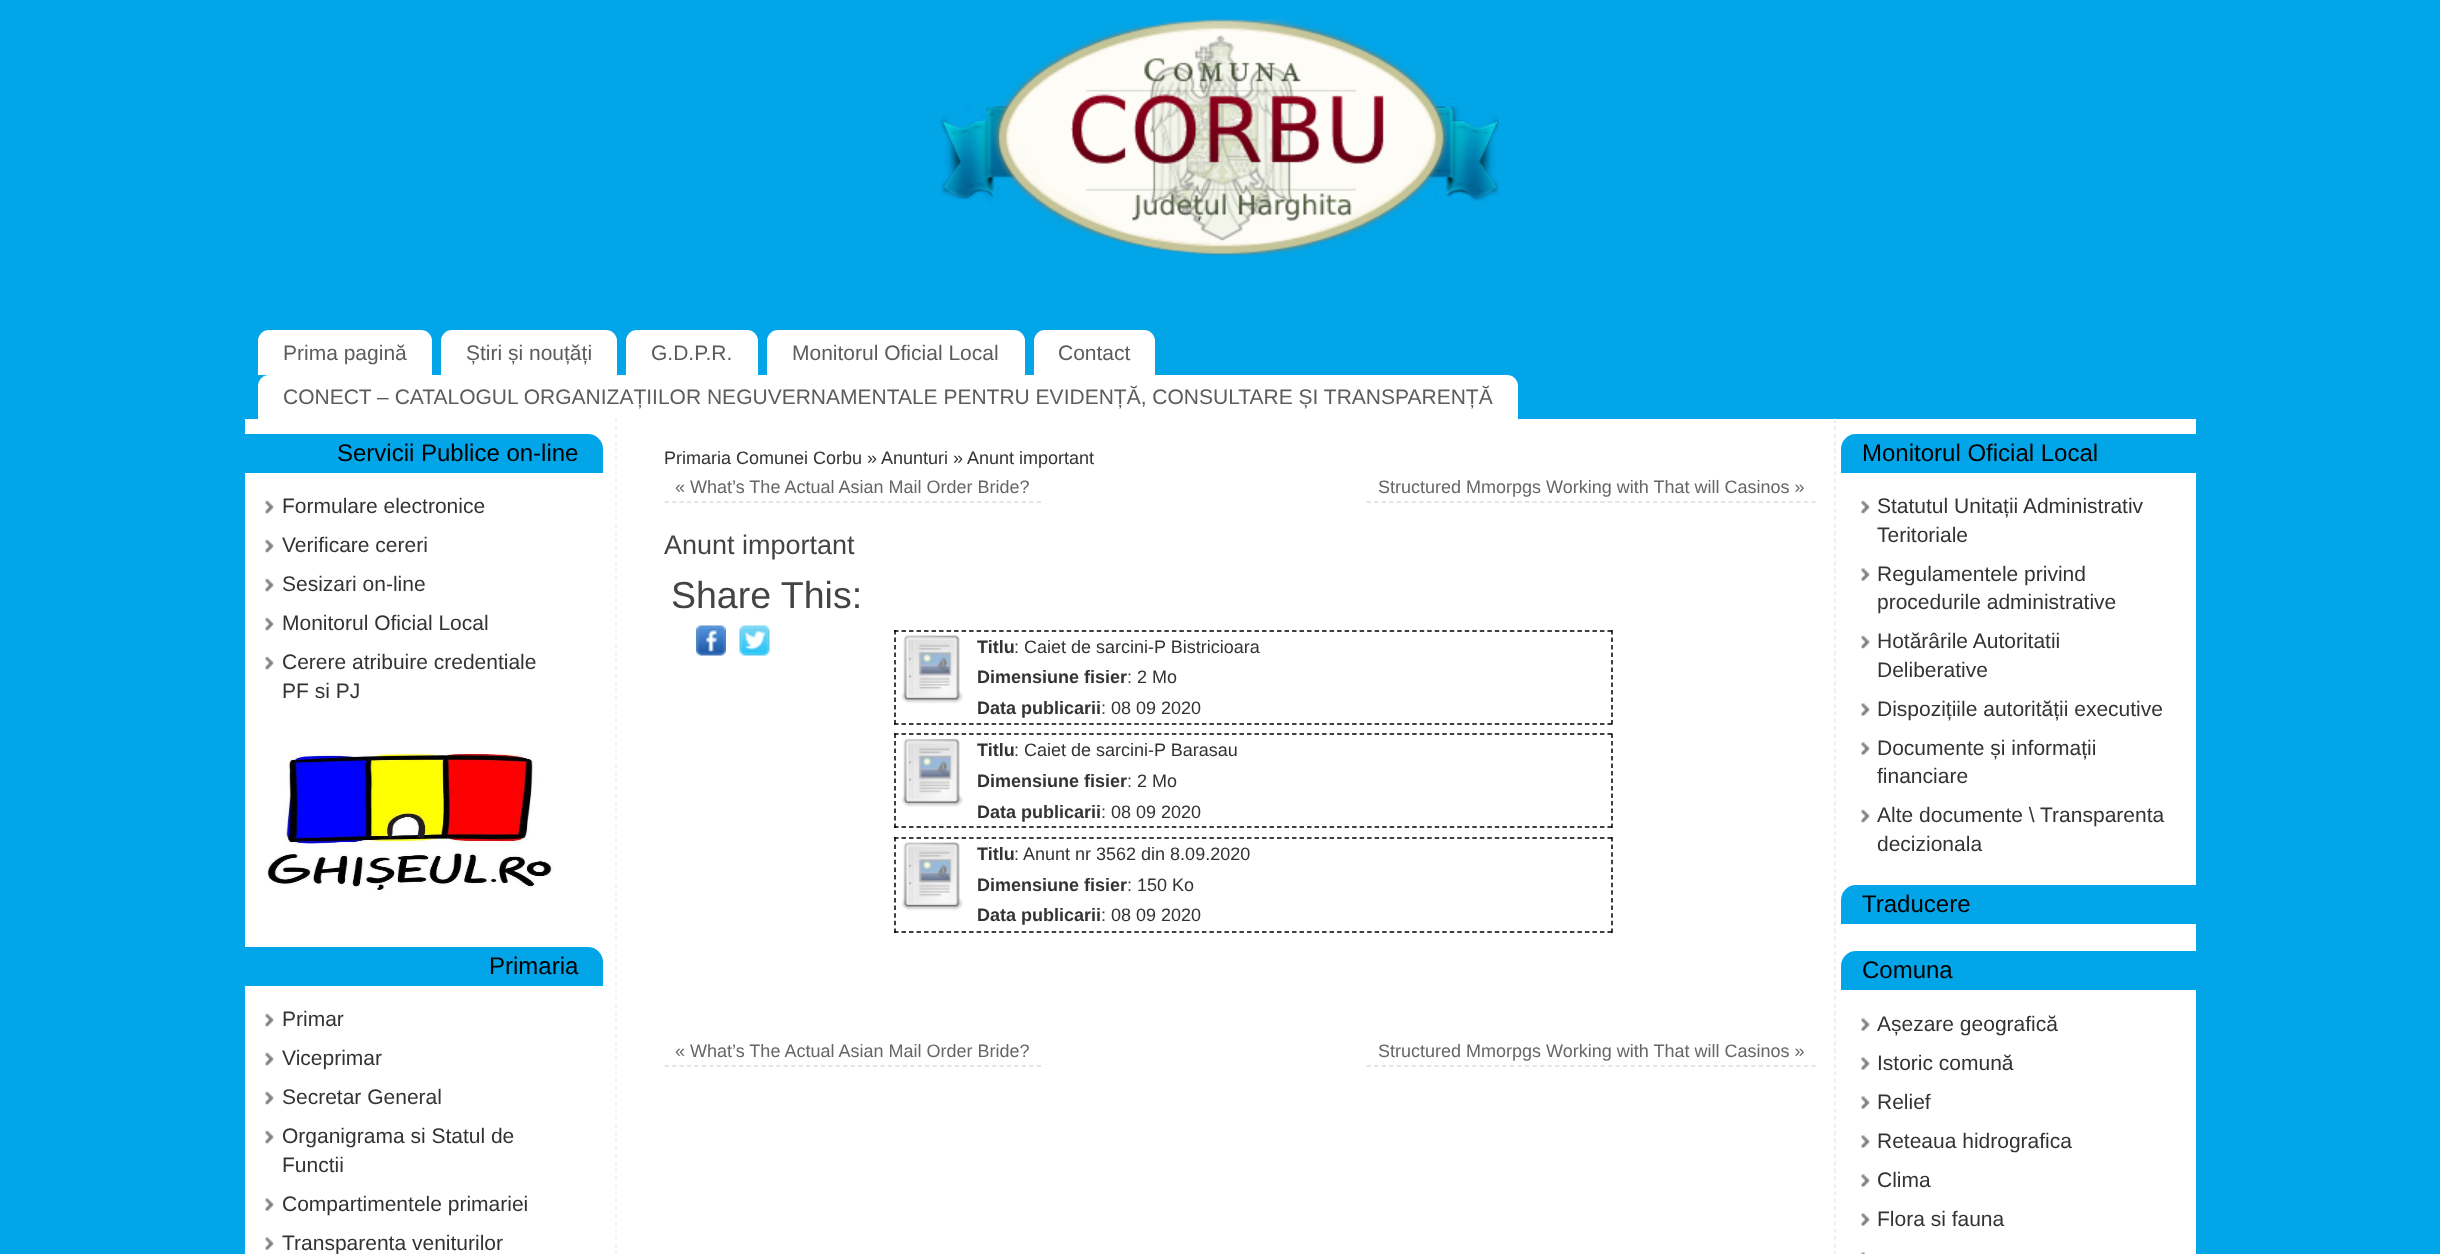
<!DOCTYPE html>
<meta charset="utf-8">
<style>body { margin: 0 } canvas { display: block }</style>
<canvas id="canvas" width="2440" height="1254"></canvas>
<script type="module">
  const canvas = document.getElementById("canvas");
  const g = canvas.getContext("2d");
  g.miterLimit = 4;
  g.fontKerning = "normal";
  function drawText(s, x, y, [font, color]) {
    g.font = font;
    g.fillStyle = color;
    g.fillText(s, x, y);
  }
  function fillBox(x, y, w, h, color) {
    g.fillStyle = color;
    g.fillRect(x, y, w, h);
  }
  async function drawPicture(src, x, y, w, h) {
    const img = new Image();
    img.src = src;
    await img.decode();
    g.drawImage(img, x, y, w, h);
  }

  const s1 = ["21px Liberation Sans", "#5F5B5B"];
  const s2 = ["24px Liberation Sans", "#000000"];
  const s3 = ["21px Liberation Sans", "#333333"];
  const s4 = ["18px Liberation Sans", "#333333"];
  const s5 = ["18px Liberation Sans", "#666666"];
  const s6 = ["27px Liberation Sans", "#444444"];
  const s7 = ["37.5px Liberation Sans", "#444444"];
  const s8 = ["bold 18px Liberation Sans", "#333333"];

  fillBox(0, 0, 2440, 1254, "#01A5E8");
  await drawPicture("pic1.png", 940, 17, 559, 239);
  g.fillStyle = "#FFFFFF";
  g.beginPath();
  g.roundRect(258, 330, 174, 45, [11, 11, 0, 0]);
  g.fill();
  drawText("Prima pagină", 283, 360, s1);
  g.fillStyle = "#FFFFFF";
  g.beginPath();
  g.roundRect(441, 330, 176, 45, [11, 11, 0, 0]);
  g.fill();
  drawText("Știri și nouțăți", 466, 360, s1);
  g.fillStyle = "#FFFFFF";
  g.beginPath();
  g.roundRect(626, 330, 132, 45, [11, 11, 0, 0]);
  g.fill();
  drawText("G.D.P.R.", 651, 360, s1);
  g.fillStyle = "#FFFFFF";
  g.beginPath();
  g.roundRect(767, 330, 258, 45, [11, 11, 0, 0]);
  g.fill();
  drawText("Monitorul Oficial Local", 792, 360, s1);
  g.fillStyle = "#FFFFFF";
  g.beginPath();
  g.roundRect(1034, 330, 121, 45, [11, 11, 0, 0]);
  g.fill();
  drawText("Contact", 1058, 360, s1);
  g.fillStyle = "#FFFFFF";
  g.beginPath();
  g.roundRect(258, 375, 1260, 44, [11, 11, 0, 0]);
  g.fill();
  drawText("CONECT – CATALOGUL ORGANIZAȚIILOR NEGUVERNAMENTALE PENTRU EVIDENȚĂ, CONSULTARE ȘI TRANSPARENȚĂ", 283, 404, s1);
  fillBox(245, 419, 1951, 835, "#FFFFFF");
  g.beginPath();
  g.moveTo(616, 418.5);
  g.lineTo(616, 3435);
  g.strokeStyle = "#EEEEEE";
  g.lineWidth = 1.5;
  g.setLineDash([4.5, 3]);
  g.stroke();
  g.fillStyle = "#01A5E8";
  g.beginPath();
  g.roundRect(245, 434, 358, 39, [0, 15, 0, 0]);
  g.fill();
  drawText("Servicii Publice on-line", 337, 461, s2);
  await drawPicture("pic2.png", 265, 500, 9, 14);
  drawText("Formulare electronice", 282, 513, s3);
  await drawPicture("pic2.png", 265, 539, 9, 14);
  drawText("Verificare cereri", 282, 552, s3);
  await drawPicture("pic2.png", 265, 578, 9, 14);
  drawText("Sesizari on-line", 282, 591, s3);
  await drawPicture("pic2.png", 265, 617, 9, 14);
  drawText("Monitorul Oficial Local", 282, 630, s3);
  await drawPicture("pic2.png", 265, 656, 9, 14);
  drawText("Cerere atribuire credentiale", 282, 669, s3);
  drawText("PF si PJ", 282, 698, s3);
  await drawPicture("pic3.png", 266, 753, 287, 138);
  g.fillStyle = "#01A5E8";
  g.beginPath();
  g.roundRect(245, 947, 358, 39, [0, 15, 0, 0]);
  g.fill();
  drawText("Primaria", 489, 974, s2);
  await drawPicture("pic2.png", 265, 1013, 9, 14);
  drawText("Primar", 282, 1026, s3);
  await drawPicture("pic2.png", 265, 1052, 9, 14);
  drawText("Viceprimar", 282, 1065, s3);
  await drawPicture("pic2.png", 265, 1091, 9, 14);
  drawText("Secretar General", 282, 1104, s3);
  await drawPicture("pic2.png", 265, 1130, 9, 14);
  drawText("Organigrama si Statul de", 282, 1143, s3);
  drawText("Functii", 282, 1172, s3);
  await drawPicture("pic4.png", 265, 1198, 9, 13);
  drawText("Compartimentele primariei", 282, 1211, s3);
  await drawPicture("pic4.png", 265, 1237, 9, 13);
  drawText("Transparenta veniturilor", 282, 1250, s3);
  drawText("Primaria Comunei Corbu »", 664, 464, s4);
  drawText("Anunturi »", 881, 464, s4);
  drawText("Anunt important", 967, 464, s4);
  g.beginPath();
  g.moveTo(664.5, 502);
  g.lineTo(1041, 502);
  g.strokeStyle = "#DDDDDD";
  g.setLineDash([4.5, 2.94]);
  g.stroke();
  drawText("« What’s The Actual Asian Mail Order Bride?", 675, 493, s5);
  g.beginPath();
  g.moveTo(1366.5, 502);
  g.lineTo(1816.5, 502);
  g.setLineDash([4.5, 3.04]);
  g.stroke();
  drawText("Structured Mmorpgs Working with That will Casinos »", 1378, 493, s5);
  drawText("Anunt important", 664, 554, s6);
  drawText("Share This:", 671, 608, s7);
  await drawPicture("pic5.png", 696, 625, 30, 31);
  await drawPicture("pic6.png", 739, 625, 31, 31);
  g.beginPath();
  g.moveTo(894, 631);
  g.lineTo(1612.5, 631);
  g.strokeStyle = "#000000";
  g.setLineDash([4.5, 3.01]);
  g.stroke();
  g.beginPath();
  g.moveTo(1612, 630);
  g.lineTo(1612, 724.5);
  g.setLineDash([4.5, 3]);
  g.stroke();
  g.beginPath();
  g.moveTo(894, 724);
  g.lineTo(1612.5, 724);
  g.setLineDash([4.5, 3.01]);
  g.stroke();
  g.beginPath();
  g.moveTo(895, 630);
  g.lineTo(895, 724.5);
  g.setLineDash([4.5, 3]);
  g.stroke();
  await drawPicture("pic7.png", 901, 635, 62, 69);
  drawText("Titlu", 977, 653, s8);
  drawText(": Caiet de sarcini-P Bistricioara", 1014, 653, s4);
  drawText("Dimensiune fisier", 977, 683, s8);
  drawText(": 2 Mo", 1127, 683, s4);
  drawText("Data publicarii", 977, 714, s8);
  drawText(": 08 09 2020", 1101, 714, s4);
  g.beginPath();
  g.moveTo(894, 734);
  g.lineTo(1612.5, 734);
  g.setLineDash([4.5, 3.01]);
  g.stroke();
  g.beginPath();
  g.moveTo(1612, 733.5);
  g.lineTo(1612, 828);
  g.setLineDash([4.5, 3]);
  g.stroke();
  g.beginPath();
  g.moveTo(894, 827);
  g.lineTo(1612.5, 827);
  g.setLineDash([4.5, 3.01]);
  g.stroke();
  g.beginPath();
  g.moveTo(895, 733.5);
  g.lineTo(895, 828);
  g.setLineDash([4.5, 3]);
  g.stroke();
  await drawPicture("pic8.png", 901, 739, 62, 68);
  drawText("Titlu", 977, 756, s8);
  drawText(": Caiet de sarcini-P Barasau", 1014, 756, s4);
  drawText("Dimensiune fisier", 977, 787, s8);
  drawText(": 2 Mo", 1127, 787, s4);
  drawText("Data publicarii", 977, 818, s8);
  drawText(": 08 09 2020", 1101, 818, s4);
  g.beginPath();
  g.moveTo(894, 838);
  g.lineTo(1612.5, 838);
  g.setLineDash([4.5, 3.01]);
  g.stroke();
  g.beginPath();
  g.moveTo(1612, 837);
  g.lineTo(1612, 933);
  g.setLineDash([4.5, 3.12]);
  g.stroke();
  g.beginPath();
  g.moveTo(894, 932);
  g.lineTo(1612.5, 932);
  g.setLineDash([4.5, 3.01]);
  g.stroke();
  g.beginPath();
  g.moveTo(895, 837);
  g.lineTo(895, 933);
  g.setLineDash([4.5, 3.12]);
  g.stroke();
  await drawPicture("pic7.png", 901, 842, 62, 69);
  drawText("Titlu", 977, 860, s8);
  drawText(":", 1014, 860, s4);
  drawText("Anunt nr 3562 din 8.09.2020", 1023, 860, s4);
  drawText("Dimensiune fisier", 977, 891, s8);
  drawText(": 150 Ko", 1127, 891, s4);
  drawText("Data publicarii", 977, 921, s8);
  drawText(": 08 09 2020", 1101, 921, s4);
  g.beginPath();
  g.moveTo(664.5, 1066);
  g.lineTo(1041, 1066);
  g.strokeStyle = "#DDDDDD";
  g.setLineDash([4.5, 2.94]);
  g.stroke();
  drawText("« What’s The Actual Asian Mail Order Bride?", 675, 1057, s5);
  g.beginPath();
  g.moveTo(1366.5, 1066);
  g.lineTo(1816.5, 1066);
  g.setLineDash([4.5, 3.04]);
  g.stroke();
  drawText("Structured Mmorpgs Working with That will Casinos »", 1378, 1057, s5);
  g.beginPath();
  g.moveTo(1835, 418.5);
  g.lineTo(1835, 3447);
  g.strokeStyle = "#EAEAEA";
  g.setLineDash([4.5, 3]);
  g.stroke();
  g.fillStyle = "#01A5E8";
  g.beginPath();
  g.roundRect(1841, 434, 355, 39, [15, 0, 0, 0]);
  g.fill();
  drawText("Monitorul Oficial Local", 1862, 461, s2);
  await drawPicture("pic2.png", 1861, 500, 9, 14);
  drawText("Statutul Unitații Administrativ", 1877, 513, s3);
  drawText("Teritoriale", 1877, 542, s3);
  await drawPicture("pic4.png", 1861, 568, 9, 13);
  drawText("Regulamentele privind", 1877, 581, s3);
  drawText("procedurile administrative", 1877, 609, s3);
  await drawPicture("pic2.png", 1861, 635, 9, 14);
  drawText("Hotărârile Autoritatii", 1877, 648, s3);
  drawText("Deliberative", 1877, 677, s3);
  await drawPicture("pic4.png", 1861, 703, 9, 13);
  drawText("Dispozițiile autorității executive", 1877, 716, s3);
  await drawPicture("pic4.png", 1861, 742, 9, 13);
  drawText("Documente și informații", 1877, 755, s3);
  drawText("financiare", 1877, 783, s3);
  await drawPicture("pic2.png", 1861, 809, 9, 14);
  drawText("Alte documente \\ Transparenta", 1877, 822, s3);
  drawText("decizionala", 1877, 851, s3);
  g.fillStyle = "#01A5E8";
  g.beginPath();
  g.roundRect(1841, 885, 355, 39, [15, 0, 0, 0]);
  g.fill();
  drawText("Traducere", 1862, 912, s2);
  g.fillStyle = "#01A5E8";
  g.beginPath();
  g.roundRect(1841, 951, 355, 39, [15, 0, 0, 0]);
  g.fill();
  drawText("Comuna", 1862, 978, s2);
  await drawPicture("pic4.png", 1861, 1018, 9, 13);
  drawText("Așezare geografică", 1877, 1031, s3);
  await drawPicture("pic4.png", 1861, 1057, 9, 13);
  drawText("Istoric comună", 1877, 1070, s3);
  await drawPicture("pic4.png", 1861, 1096, 9, 13);
  drawText("Relief", 1877, 1109, s3);
  await drawPicture("pic4.png", 1861, 1135, 9, 13);
  drawText("Reteaua hidrografica", 1877, 1148, s3);
  await drawPicture("pic4.png", 1861, 1174, 9, 13);
  drawText("Clima", 1877, 1187, s3);
  await drawPicture("pic4.png", 1861, 1213, 9, 13);
  drawText("Flora si fauna", 1877, 1226, s3);
  await drawPicture("pic9.png", 1861, 1252, 5, 2);
</script>
